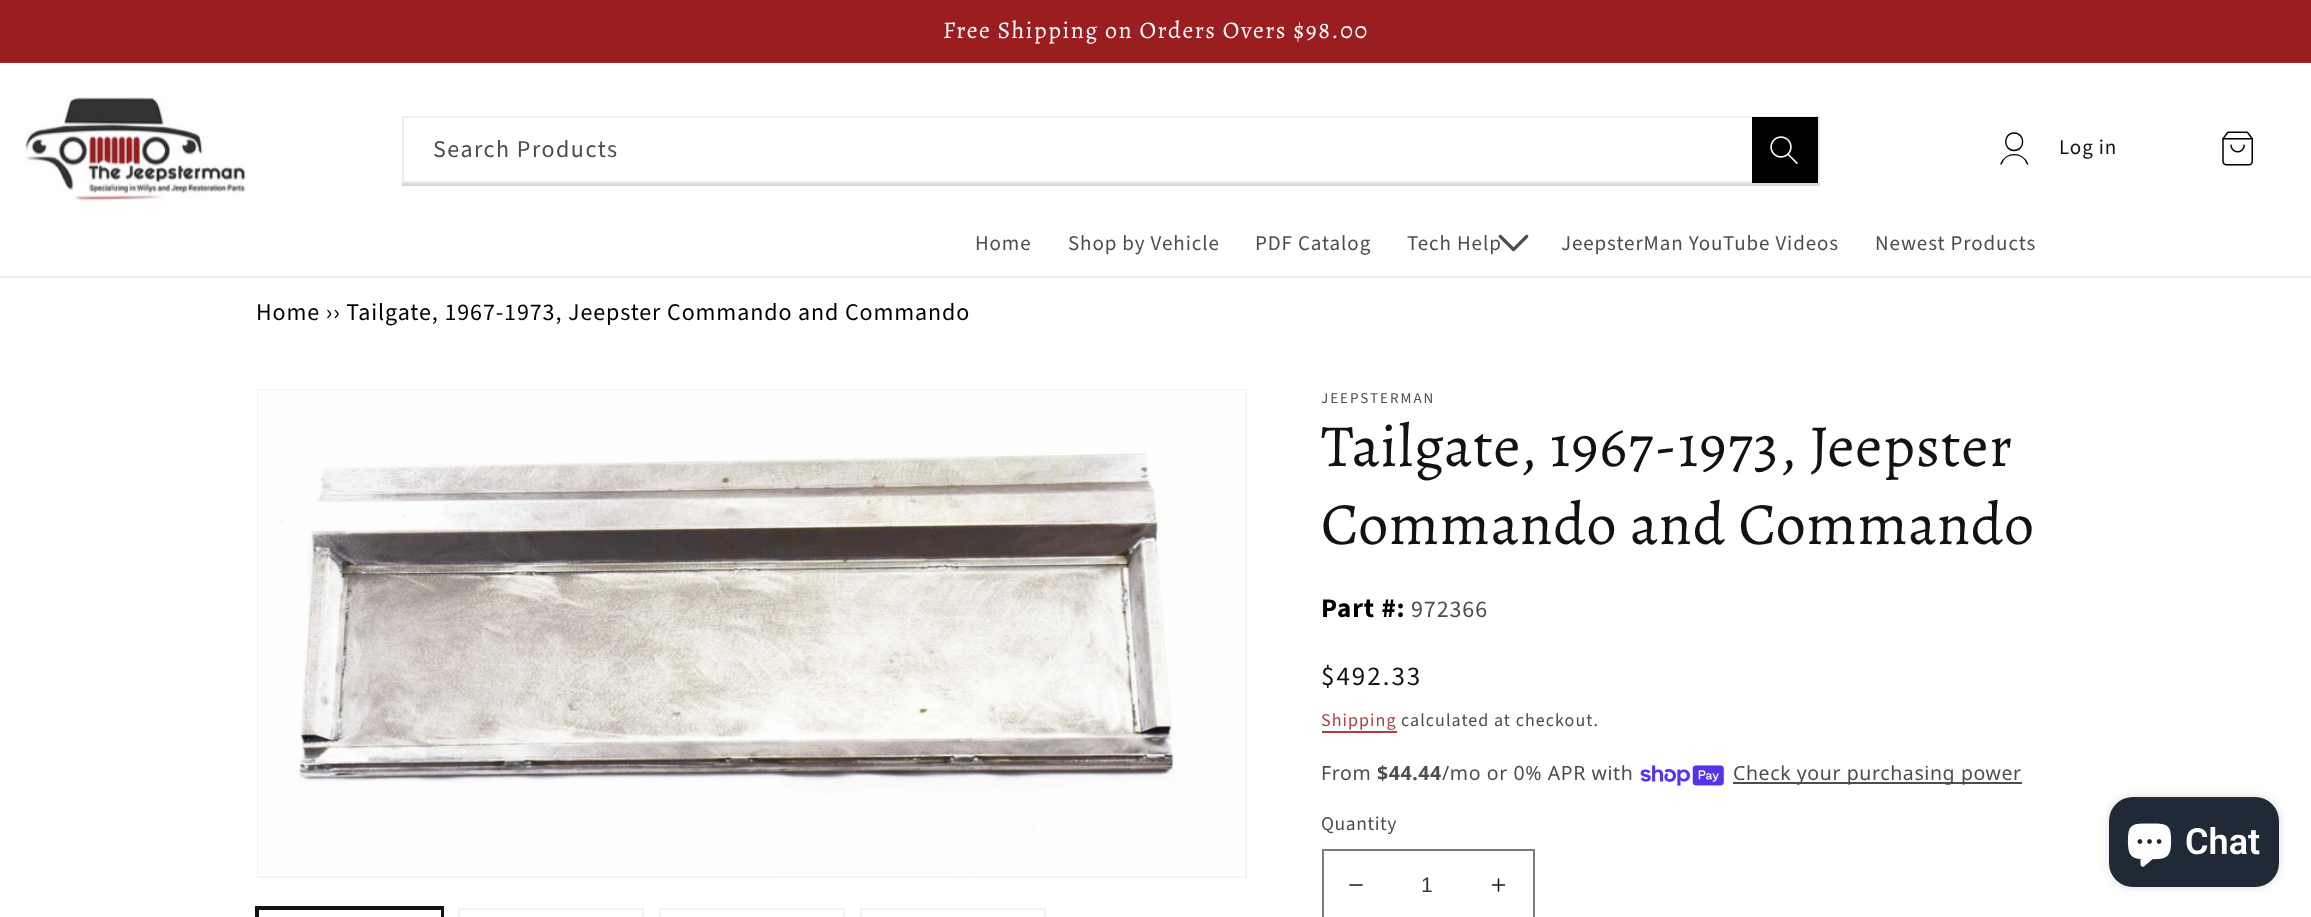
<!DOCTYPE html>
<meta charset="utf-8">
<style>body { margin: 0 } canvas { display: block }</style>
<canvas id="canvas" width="2311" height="917"></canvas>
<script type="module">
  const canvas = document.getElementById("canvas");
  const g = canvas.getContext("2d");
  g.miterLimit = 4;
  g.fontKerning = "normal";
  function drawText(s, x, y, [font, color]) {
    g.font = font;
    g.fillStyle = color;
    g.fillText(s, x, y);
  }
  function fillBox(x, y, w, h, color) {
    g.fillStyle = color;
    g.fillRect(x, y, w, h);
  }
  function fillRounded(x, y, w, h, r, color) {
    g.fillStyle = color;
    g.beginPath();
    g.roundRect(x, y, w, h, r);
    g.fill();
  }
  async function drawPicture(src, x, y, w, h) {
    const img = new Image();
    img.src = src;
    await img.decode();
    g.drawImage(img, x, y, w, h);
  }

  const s1 = ["24px Alegreya", "#FFFFFF"];
  const s2 = ["24px Source Sans Pro", "#4D4D4D"];
  const s3 = ["21px Source Sans Pro", "#121212"];
  const s4 = ["21px Source Sans Pro", "#4D4D4D"];
  const s5 = ["24px Source Sans Pro", "#000000"];
  const s6 = ["15px Source Sans Pro", "#4D4D4D"];
  const s7 = ["60px Alegreya", "#121212"];
  const s8 = ["bold 27px Source Sans Pro", "#000000"];
  const s9 = ["27px Source Sans Pro", "#121212"];
  const s10 = ["18px Source Sans Pro", "#A93F41"];
  const s11 = ["18px Source Sans Pro", "#4D4D4D"];
  const s12 = ["19.5px Noto Sans", "#4D4D4D"];
  const s13 = ["bold 19.5px Noto Sans", "#4D4D4D"];
  const s14 = ["19.5px Source Sans Pro", "#4D4D4D"];
  const s15 = ["21px Liberation Sans", "#363636"];
  const s16 = ["600 36px Roboto", "#FFFFFF"];

  fillBox(0, 0, 2311, 917, "#FFFFFF");
  fillBox(0, 0, 2311, 62, "#9A1D20");
  fillBox(0, 62, 2311, 1, "#A22F32");
  g.letterSpacing = "1.5px";
  drawText("Free Shipping on Orders Overs $98.00", 943, 38, s1);
  fillBox(0, 276, 2311, 2, "#ECECEC");
  await drawPicture("pic1.png", 25, 96, 221, 105);
  g.fillStyle = "#D9D9D9";
  g.beginPath();
  g.moveTo(402, 183);
  g.lineTo(402, 186);
  g.lineTo(1820, 186);
  g.lineTo(1820, 119);
  g.lineTo(1820, 183);
  g.closePath();
  g.fill();
  g.strokeStyle = "#EEEEEE";
  g.lineWidth = 2;
  g.strokeRect(403, 117, 1416, 65);
  drawText("Search Products", 433, 157, s2);
  fillBox(1752, 117, 66, 66, "#000000");
  await drawPicture("pic2.png", 1770, 136, 28, 28);
  g.beginPath();
  g.moveTo(2014, 150.5);
  g.bezierCurveTo(2025.5, 150.5, 2025.5, 133, 2014, 133);
  g.bezierCurveTo(2003, 133, 2003, 150.5, 2014, 150.5);
  g.closePath();
  g.moveTo(2027.5, 164);
  g.bezierCurveTo(2023, 151.5, 2005.5, 151.5, 2001, 164);
  g.strokeStyle = "#000000";
  g.lineWidth = 1.4;
  g.lineCap = "round";
  g.lineJoin = "round";
  g.stroke();
  g.letterSpacing = "0.9px";
  drawText("Log in", 2059, 154, s3);
  await drawPicture("pic3.png", 2222, 131, 31, 35);
  drawText("Home", 975, 250, s4);
  drawText("Shop by Vehicle", 1068, 250, s4);
  drawText("PDF Catalog", 1255, 250, s4);
  drawText("Tech Help", 1407, 250, s4);
  await drawPicture("pic4.png", 1498, 234, 31, 18);
  drawText("JeepsterMan YouTube Videos", 1561, 250, s4);
  drawText("Newest Products", 1875, 250, s4);
  drawText("Home ›› Tailgate, 1967-1973, Jeepster Commando and Commando", 256, 320, s5);
  g.strokeStyle = "#F3F3F3";
  g.lineWidth = 2;
  g.lineJoin = "miter";
  g.strokeRect(258, 390, 988, 487);
  await drawPicture("pic5.png", 258, 390, 987, 486);
  g.strokeStyle = "#121212";
  g.strokeRect(256, 907, 187, 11);
  g.strokeRect(258, 909, 184, 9);
  g.strokeStyle = "#F3F3F3";
  g.strokeRect(459, 909, 184, 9);
  g.strokeRect(660, 909, 184, 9);
  g.strokeRect(861, 909, 184, 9);
  g.letterSpacing = "2px";
  drawText("JEEPSTERMAN", 1321, 403, s6);
  g.letterSpacing = "0.9px";
  drawText("Tailgate, 1967-1973, Jeepster", 1321, 466, s7);
  drawText("Commando and Commando", 1321, 544, s7);
  drawText("Part #:", 1321, 617, s8);
  drawText("972366", 1411, 617, s2);
  g.letterSpacing = "2px";
  drawText("$492.33", 1321, 685, s9);
  g.letterSpacing = "1.05px";
  drawText("Shipping", 1321, 726, s10);
  fillBox(1322, 731, 75, 2, "#A93F41");
  drawText("calculated at checkout.", 1401, 726, s11);
  g.letterSpacing = "0.6px";
  drawText("From", 1321, 780, s12);
  drawText("$44.44", 1377, 780, s13);
  drawText("/mo or 0% APR with", 1442, 780, s12);
  await drawPicture("pic6.png", 1640, 765, 84, 21);
  fillBox(1733, 782, 289, 2, "#4D4D4D");
  drawText("Check your purchasing power", 1733, 780, s12);
  drawText("Quantity", 1321, 830, s14);
  await drawPicture("pic7.png", 1349, 884, 14, 2);
  await drawPicture("pic8.png", 1491, 878, 15, 14);
  g.strokeStyle = "#7D7D7D";
  g.strokeRect(1323, 850, 211, 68);
  g.letterSpacing = "0px";
  drawText("1", 1421, 892, s15);
  g.fillStyle = "rgba(0, 0, 0, 0.15)";
  g.filter = "blur(4px)";
  g.beginPath();
  g.roundRect(2109, 797, 170, 90, 24);
  g.fill();
  g.filter = "none";
  fillRounded(2109, 797, 170, 90, 24, "#202A36");
  await drawPicture("pic9.png", 2127, 823, 45, 44);
  drawText("Chat", 2185, 854, s16);
</script>
